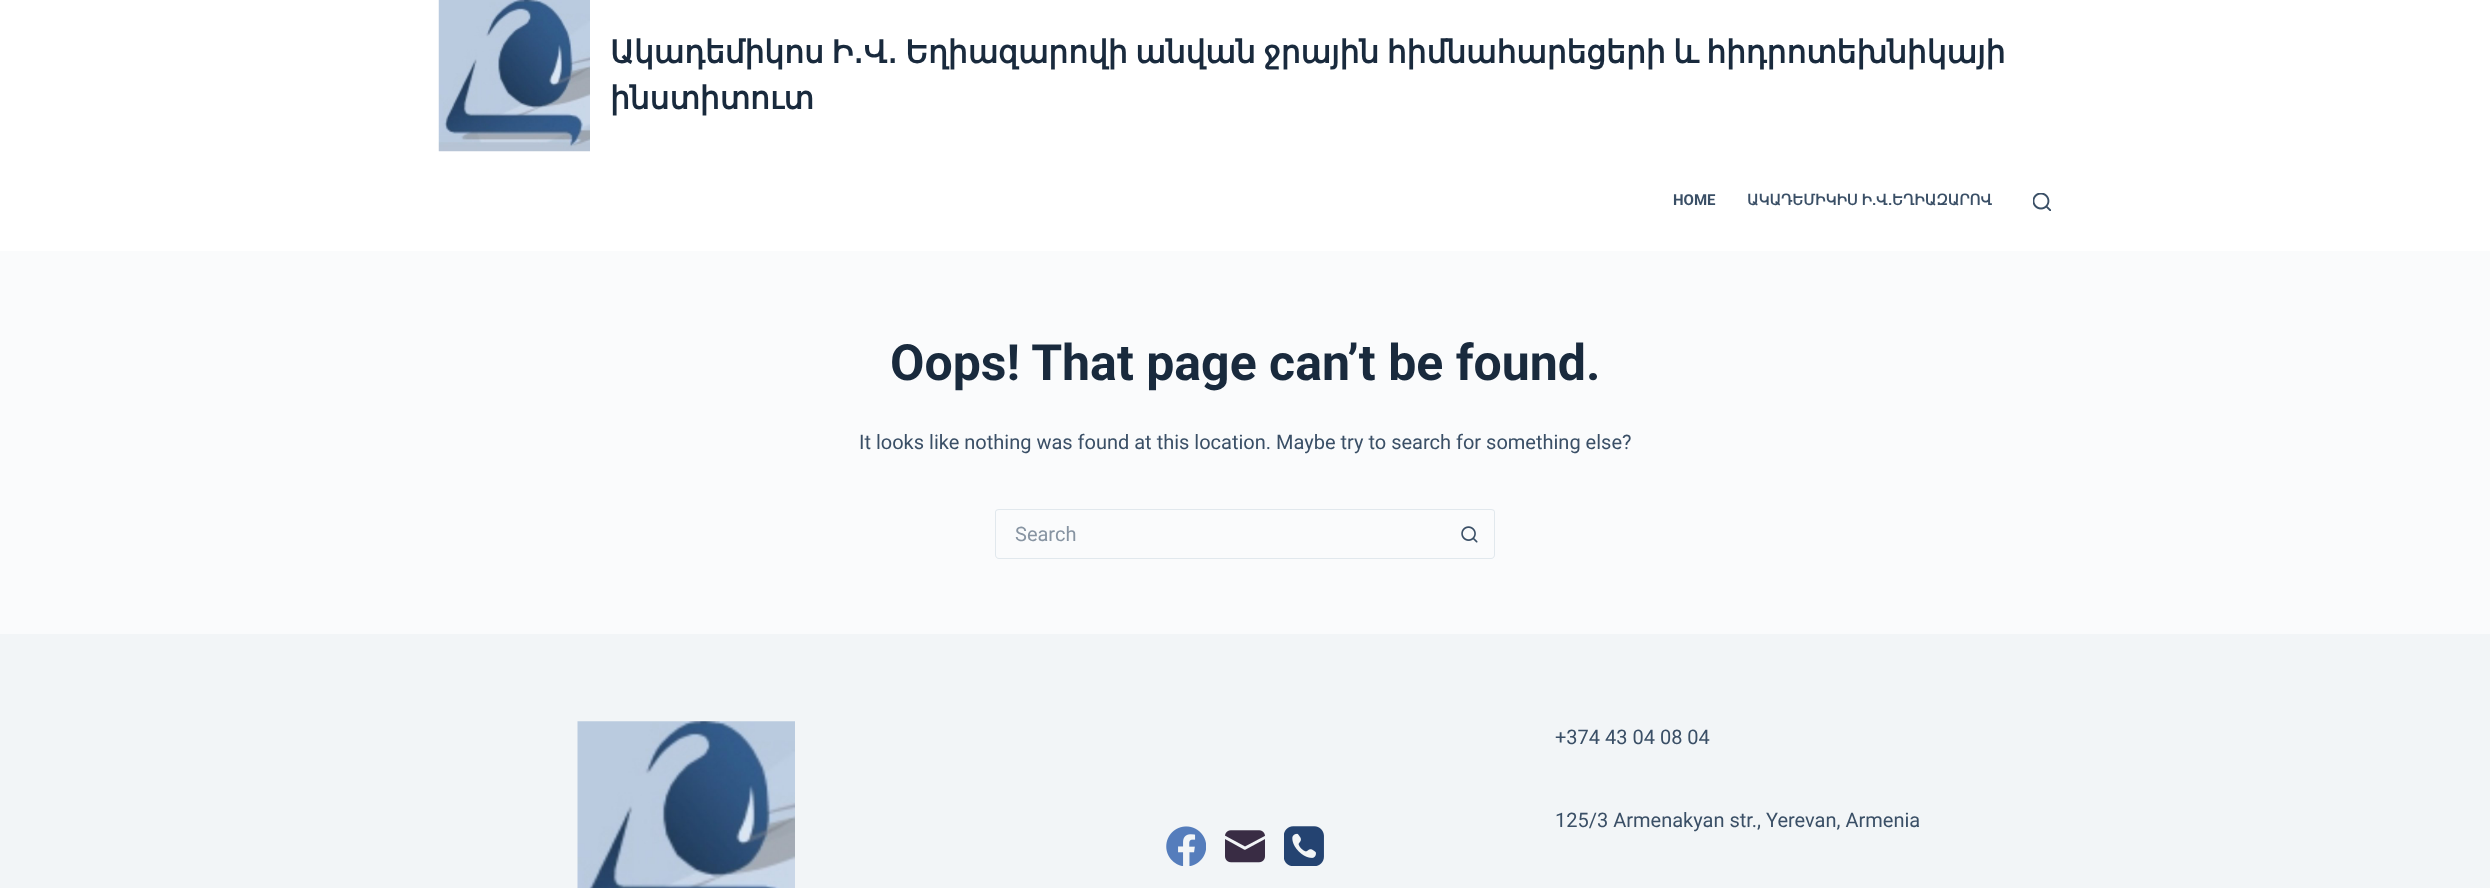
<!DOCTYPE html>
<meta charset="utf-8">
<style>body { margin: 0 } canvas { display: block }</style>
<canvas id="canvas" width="2490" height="888"></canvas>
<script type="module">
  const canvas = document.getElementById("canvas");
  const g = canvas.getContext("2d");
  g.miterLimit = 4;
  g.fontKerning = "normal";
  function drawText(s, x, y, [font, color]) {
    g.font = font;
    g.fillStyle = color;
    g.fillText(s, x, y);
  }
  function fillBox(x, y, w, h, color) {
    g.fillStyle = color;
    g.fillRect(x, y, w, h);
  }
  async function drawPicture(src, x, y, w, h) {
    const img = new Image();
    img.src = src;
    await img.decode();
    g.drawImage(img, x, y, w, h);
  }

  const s1 = ["bold 31.25px DejaVu Sans", "#192A3D"];
  const s2 = ["bold 15px Roboto", "#3A4F66"];
  const s3 = ["bold 15px DejaVu Sans", "#3A4F66"];
  const s4 = ["bold 50px Roboto", "#192A3D"];
  const s5 = ["20px Roboto", "#3A4F66"];
  const s6 = ["20px Roboto", "#8794A2"];

  fillBox(0, 0, 2490, 888, "#FAFBFC");
  fillBox(0, 0, 2490, 251, "#FFFFFF");
  await drawPicture("pic1.png", 438, 0, 152, 152);
  g.wordSpacing = "-2.25px";
  drawText("Ակադեմիկոս Ի․Վ․ Եղիազարովի անվան ջրային հիմնահարեցերի և հիդրոտեխնիկայի", 610, 63, s1);
  g.wordSpacing = "0px";
  drawText("ինստիտուտ", 610, 109, s1);
  drawText("HOME", 1673, 205, s2);
  g.wordSpacing = "-1px";
  drawText("ԱԿԱԴԵՄԻԿԻՍ Ի", 1747, 205, s3);
  g.wordSpacing = "0px";
  drawText(".", 1872, 205, s2);
  drawText("Վ", 1876, 205, s3);
  drawText(".", 1888, 205, s2);
  drawText("ԵՂԻԱԶԱՐՈՎ", 1892, 205, s3);
  await drawPicture("pic2.png", 2033, 193, 18, 18);
  drawText("Oops! That page can’t be found.", 890, 380, s4);
  drawText("It looks like nothing was found at this location. Maybe try to search for something else?", 859, 449, s5);
  g.fillStyle = "#E1E8ED";
  g.beginPath();
  g.moveTo(999, 509);
  g.lineTo(1445, 509);
  g.lineTo(1445, 559);
  g.lineTo(999, 559);
  g.bezierCurveTo(997, 559, 995, 557, 995, 555);
  g.lineTo(995, 512);
  g.bezierCurveTo(995, 510, 997, 509, 999, 509);
  g.closePath();
  g.moveTo(999, 510);
  g.lineTo(1445, 510);
  g.lineTo(1445, 558);
  g.lineTo(999, 558);
  g.bezierCurveTo(997, 558, 996, 556, 996, 555);
  g.lineTo(996, 512);
  g.bezierCurveTo(996, 511, 997, 510, 999, 510);
  g.closePath();
  g.fill("evenodd");
  drawText("Search", 1015, 541, s6);
  g.fillStyle = "#E1E8ED";
  g.beginPath();
  g.moveTo(1445, 509);
  g.lineTo(1491, 509);
  g.bezierCurveTo(1493, 509, 1495, 510, 1495, 512);
  g.lineTo(1495, 555);
  g.bezierCurveTo(1495, 557, 1493, 559, 1491, 559);
  g.lineTo(1445, 559);
  g.closePath();
  g.moveTo(1445, 510);
  g.lineTo(1491, 510);
  g.bezierCurveTo(1493, 510, 1494, 511, 1494, 512);
  g.lineTo(1494, 555);
  g.bezierCurveTo(1494, 556, 1493, 558, 1491, 558);
  g.lineTo(1445, 558);
  g.closePath();
  g.fill("evenodd");
  await drawPicture("pic3.png", 1461, 526, 17, 17);
  fillBox(0, 634, 2490, 254, "#F2F5F7");
  await drawPicture("pic4.png", 577, 721, 218, 167);
  drawText("+374 43 04 08 04", 1555, 744, s5);
  drawText("125/3 Armenakyan str., Yerevan, Armenia", 1555, 827, s5);
  await drawPicture("pic5.png", 1166, 826, 40, 40);
  await drawPicture("pic6.png", 1225, 830, 40, 33);
  await drawPicture("pic7.png", 1284, 826, 40, 40);
</script>
